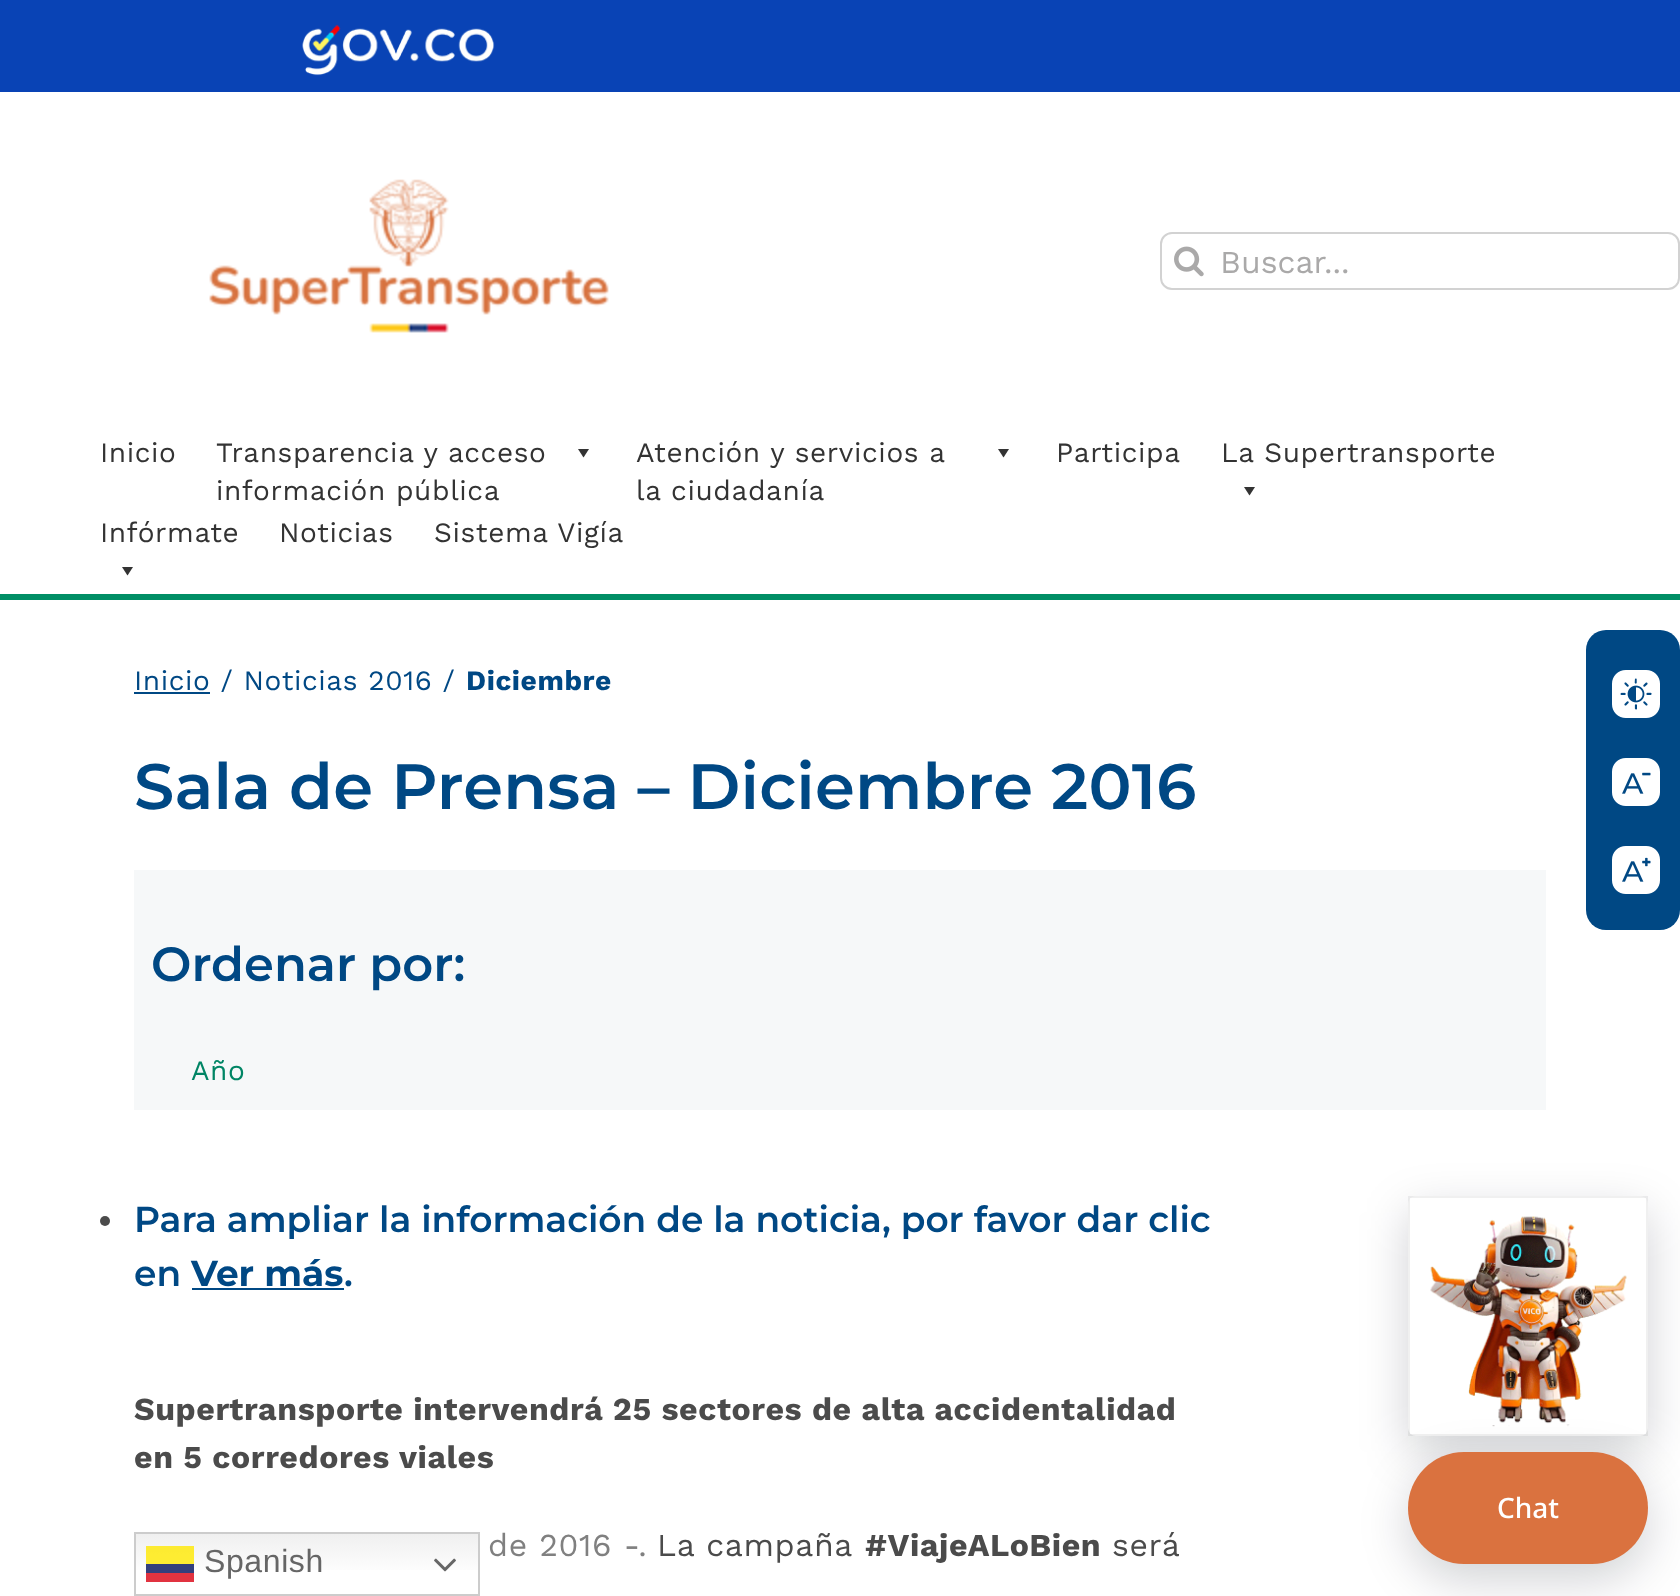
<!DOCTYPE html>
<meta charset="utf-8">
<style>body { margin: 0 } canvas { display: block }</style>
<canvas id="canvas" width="1680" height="1596"></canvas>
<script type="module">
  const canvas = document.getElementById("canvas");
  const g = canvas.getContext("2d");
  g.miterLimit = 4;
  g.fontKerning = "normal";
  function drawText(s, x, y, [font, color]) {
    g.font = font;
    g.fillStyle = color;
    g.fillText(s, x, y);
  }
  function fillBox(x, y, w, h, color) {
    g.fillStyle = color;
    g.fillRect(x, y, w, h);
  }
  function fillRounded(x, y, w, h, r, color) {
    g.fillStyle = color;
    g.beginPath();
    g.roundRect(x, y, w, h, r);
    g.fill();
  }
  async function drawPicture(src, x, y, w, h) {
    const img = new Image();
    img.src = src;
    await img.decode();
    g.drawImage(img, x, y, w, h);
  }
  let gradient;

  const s1 = ["32px Work Sans", "#AAA9A9"];
  const s2 = ["28px Work Sans", "#333333"];
  const s3 = ["28px Work Sans", "#004884"];
  const s4 = ["bold 28px Work Sans", "#004884"];
  const s5 = ["600 64px Montserrat", "#004884"];
  const s6 = ["600 48px Montserrat", "#004884"];
  const s7 = ["28px Work Sans", "#008565"];
  const s8 = ["600 36px Montserrat", "#004884"];
  const s9 = ["bold 36px Montserrat", "#004884"];
  const s10 = ["bold 32px Work Sans", "#4B4B4B"];
  const s11 = ["32px Work Sans", "#808080"];
  const s12 = ["32px Work Sans", "#4B4B4B"];
  const s13 = ["500 28px Noto Sans", "#FFFFFF"];
  const s14 = ["32px Liberation Sans", "#666666"];

  fillBox(0, 0, 1680, 1596, "#FFFFFF");
  fillBox(0, 0, 1680, 92, "#0943B5");
  await drawPicture("pic1.png", 302, 24, 193, 52);
  await drawPicture("pic2.png", 209, 179, 400, 154);
  g.beginPath();
  g.roundRect(1161, 233, 518, 56, 11);
  g.strokeStyle = "#D2D2D2";
  g.lineWidth = 2;
  g.stroke();
  await drawPicture("pic3.png", 1174, 246, 30, 31);
  drawText("Buscar...", 1220, 273, s1);
  fillBox(0, 594, 1680, 6, "#008E65");
  g.letterSpacing = "0.6px";
  drawText("Inicio", 100, 462, s2);
  drawText("Transparencia y acceso", 216, 462, s2);
  drawText("información pública", 216, 500, s2);
  g.beginPath();
  g.moveTo(589, 449);
  g.lineTo(583.5, 457.5);
  g.lineTo(578, 449);
  g.closePath();
  g.fill();
  drawText("Atención y servicios a", 636, 462, s2);
  drawText("la ciudadanía", 636, 500, s2);
  g.beginPath();
  g.moveTo(1009, 449);
  g.lineTo(1003.5, 457.5);
  g.lineTo(998, 449);
  g.closePath();
  g.fill();
  drawText("Participa", 1056, 462, s2);
  drawText("La Supertransporte", 1221, 462, s2);
  g.beginPath();
  g.moveTo(1255, 487);
  g.lineTo(1249.5, 495.5);
  g.lineTo(1244, 487);
  g.closePath();
  g.fill();
  drawText("Infórmate", 100, 542, s2);
  g.beginPath();
  g.moveTo(133, 567);
  g.lineTo(127.5, 575.5);
  g.lineTo(122, 567);
  g.closePath();
  g.fill();
  drawText("Noticias", 279, 542, s2);
  drawText("Sistema Vigía", 434, 542, s2);
  drawText("Inicio / Noticias 2016 /", 134, 690, s3);
  fillBox(134, 692, 76, 2, "#004884");
  drawText("Diciembre", 466, 690, s4);
  g.letterSpacing = "0.2px";
  drawText("Sala de Prensa – Diciembre 2016", 134, 809, s5);
  fillBox(134, 870, 1412, 240, "#F6F8F9");
  g.letterSpacing = "0px";
  drawText("Ordenar por:", 151, 981, s6);
  g.letterSpacing = "0.6px";
  drawText("Año", 191, 1080, s7);
  g.fillStyle = "#4B4B4B";
  g.beginPath();
  g.arc(105, 1221, 5, 0, Math.PI * 2);
  g.fill();
  g.letterSpacing = "0px";
  drawText("Para ampliar la información de la noticia, por favor dar clic", 134, 1232, s8);
  drawText("en", 134, 1286, s8);
  drawText("Ver más", 191, 1286, s9);
  fillBox(192, 1288, 152, 2, "#004884");
  drawText(".", 344, 1286, s8);
  g.letterSpacing = "0.6px";
  drawText("Supertransporte intervendrá 25 sectores de alta accidentalidad", 134, 1420, s10);
  drawText("en 5 corredores viales", 134, 1468, s10);
  drawText("de 2016 -.", 488, 1556, s11);
  drawText("La campaña", 657, 1556, s12);
  drawText("#ViajeALoBien", 865, 1556, s10);
  drawText("será", 1112, 1556, s12);
  fillRounded(1586, 630, 94, 300, 20, "#004884");
  await drawPicture("pic4.png", 1612, 670, 48, 48);
  await drawPicture("pic5.png", 1612, 758, 48, 48);
  await drawPicture("pic6.png", 1612, 846, 48, 48);
  g.fillStyle = "rgba(2, 6, 23, 0.18)";
  g.filter = "blur(24px)";
  g.beginPath();
  g.roundRect(1408, 1212, 240, 240, 8);
  g.fill();
  g.filter = "none";
  fillRounded(1408, 1196, 240, 240, 8, "#FFFFFF");
  g.strokeStyle = "rgba(0, 0, 0, 0.06)";
  g.strokeRect(1409, 1197, 238, 238);
  await drawPicture("pic7.png", 1430, 1216, 197, 211);
  g.fillStyle = "rgba(2, 6, 23, 0.18)";
  g.filter = "blur(24px)";
  g.beginPath();
  g.roundRect(1408, 1468, 240, 112, 56);
  g.fill();
  g.filter = "none";
  fillRounded(1408, 1452, 240, 112, 56, "#DA723F");
  g.letterSpacing = "0px";
  drawText("Chat", 1497, 1518, s13);
  gradient = g.createLinearGradient(307, 1532, 307, 1596);
  gradient.addColorStop(0, "#EFEFEF");
  gradient.addColorStop(0.7, "#FFFFFF");
  g.fillStyle = gradient;
  g.fillRect(136, 1534, 342, 36);
  g.strokeStyle = "#CCCCCC";
  g.strokeRect(135, 1533, 344, 62);
  fillBox(146, 1546, 48, 18, "rgba(255, 232, 0, 0.8)");
  g.letterSpacing = "0.6px";
  drawText("Spanish", 204, 1572, s14);
  await drawPicture("pic8.png", 434, 1558, 22, 14);
  fillBox(146, 1564, 48, 9, "#333F7C");
  fillBox(146, 1573, 48, 9, "#E13340");
</script>
